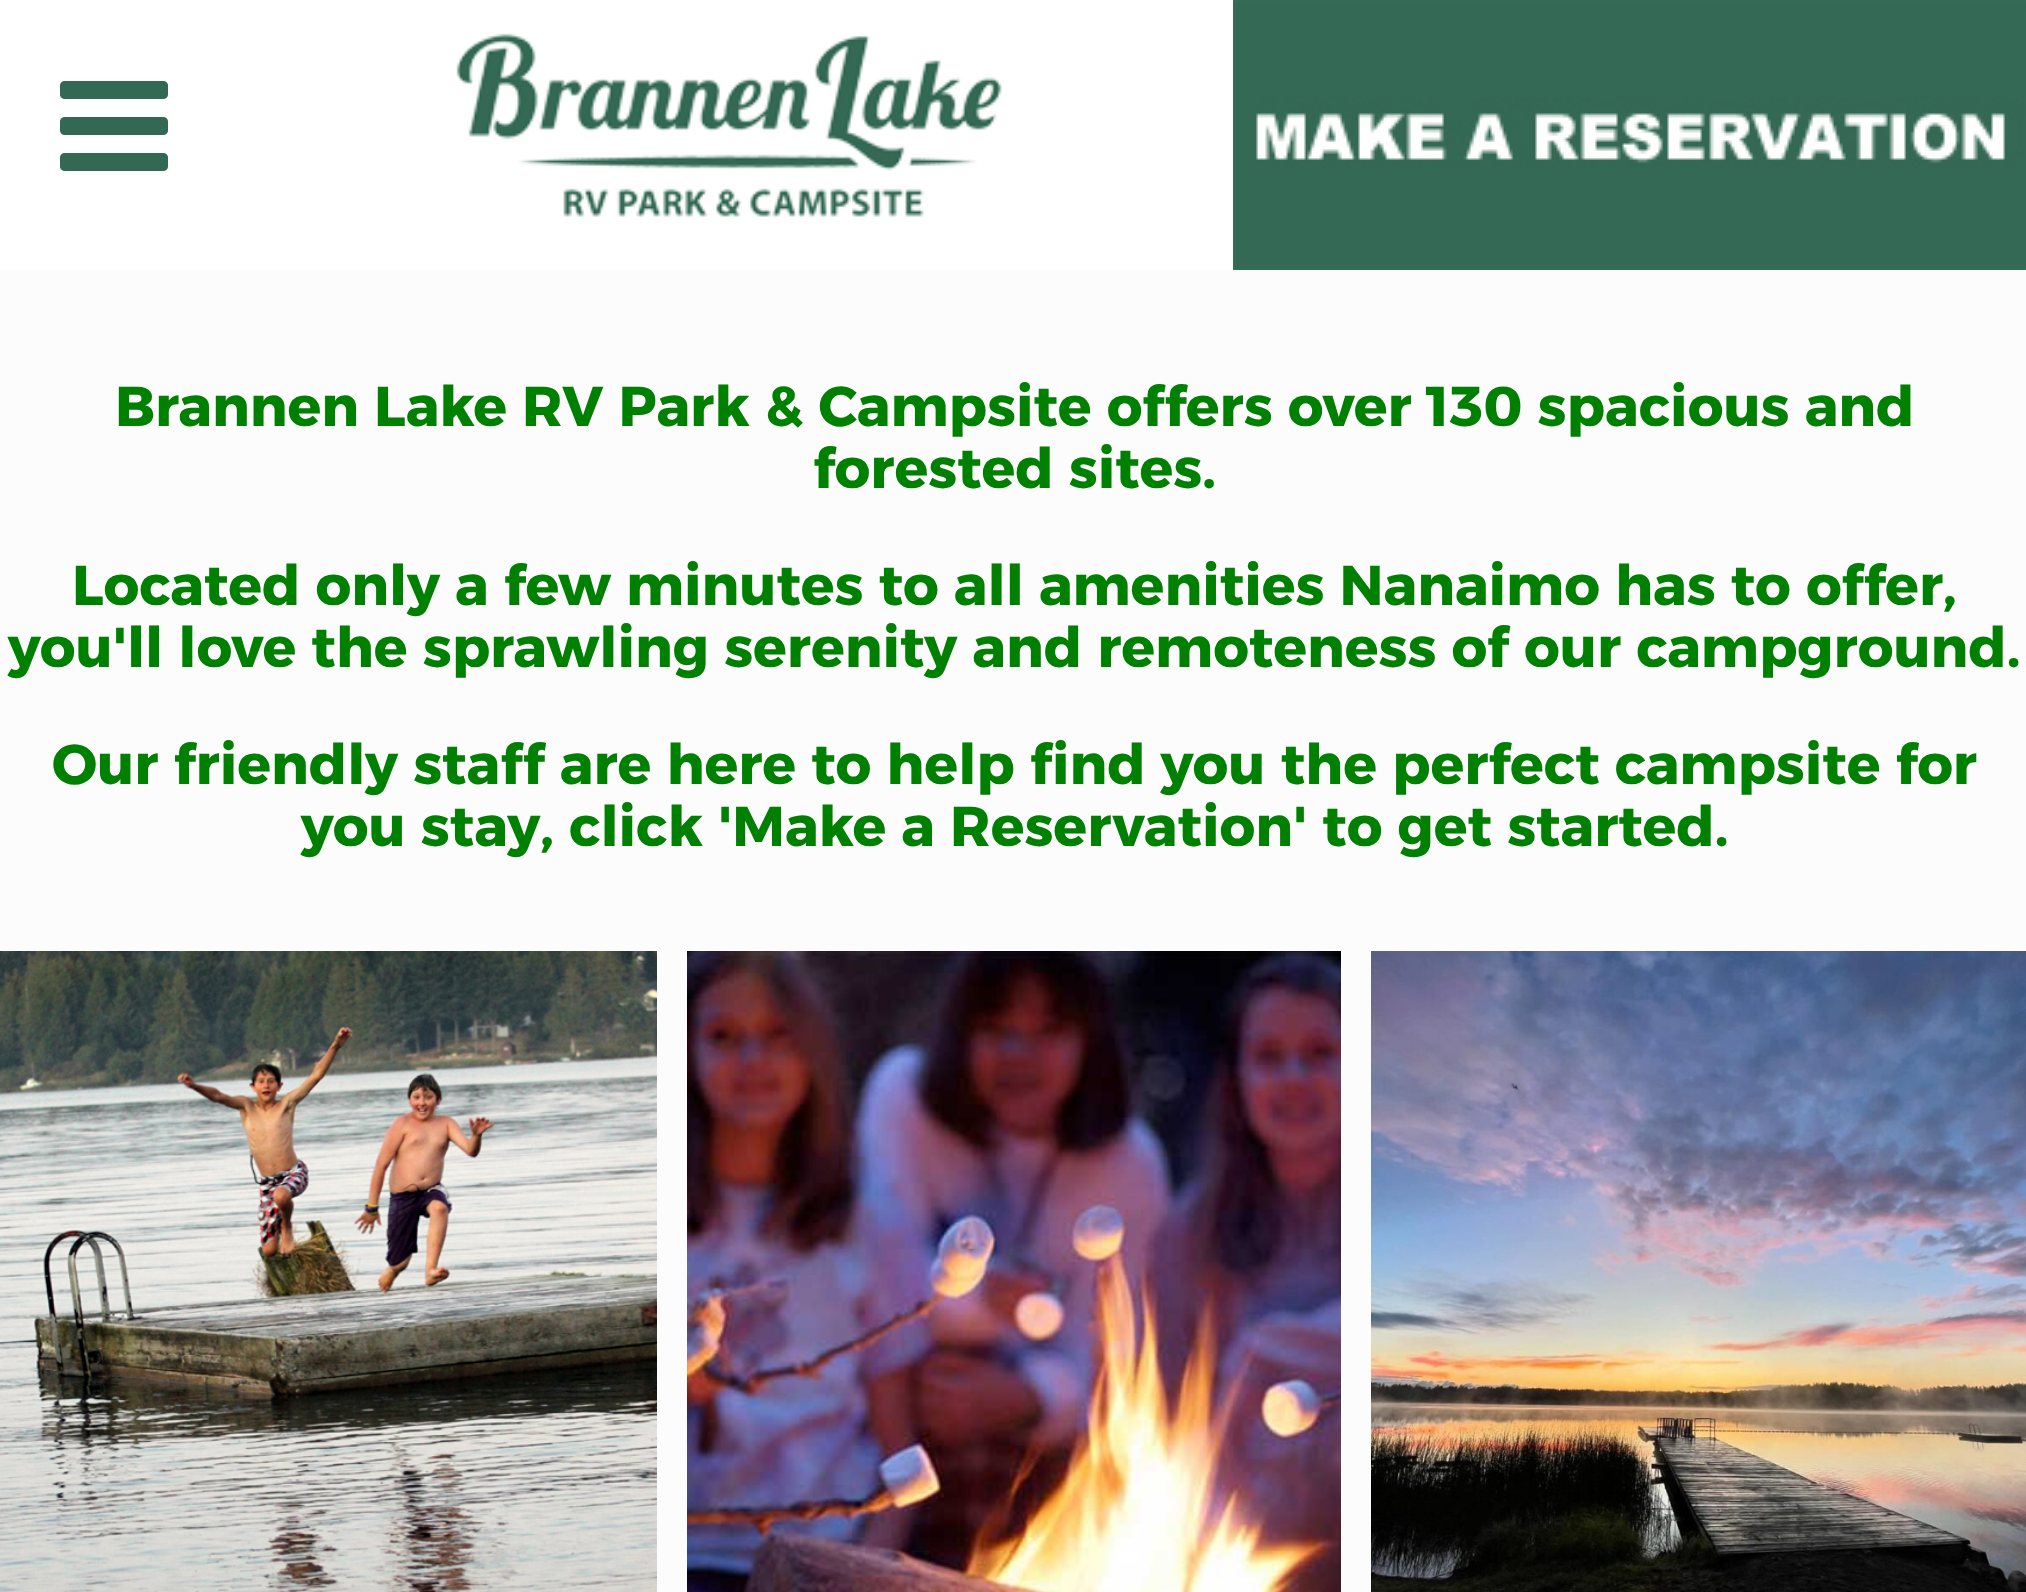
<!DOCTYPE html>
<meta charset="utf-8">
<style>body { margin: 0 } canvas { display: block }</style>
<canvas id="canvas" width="2026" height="1592"></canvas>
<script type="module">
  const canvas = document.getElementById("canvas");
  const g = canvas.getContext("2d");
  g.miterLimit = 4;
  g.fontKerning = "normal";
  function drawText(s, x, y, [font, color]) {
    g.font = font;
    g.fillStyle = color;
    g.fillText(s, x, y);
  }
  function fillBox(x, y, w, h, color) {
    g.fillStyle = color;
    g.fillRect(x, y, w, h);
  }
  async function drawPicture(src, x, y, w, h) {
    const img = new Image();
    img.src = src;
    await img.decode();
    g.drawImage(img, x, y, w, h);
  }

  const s1 = ["bold 56px Alexandria", "#008000"];

  fillBox(0, 0, 2026, 1592, "#FCFCFC");
  fillBox(0, 0, 1233, 270, "#FFFFFF");
  await drawPicture("pic1.png", 60, 81, 108, 90);
  await drawPicture("pic2.png", 456, 33, 546, 184);
  await drawPicture("pic3.png", 1233, 0, 793, 270);
  drawText("Brannen Lake RV Park & Campsite offers over 130 spacious and", 115, 426, s1);
  drawText("forested sites.", 813, 488, s1);
  drawText("Located only a few minutes to all amenities Nanaimo has to offer,", 72, 605, s1);
  drawText("you'll love the sprawling serenity and remoteness of our campground.", 8, 667, s1);
  drawText("Our friendly staff are here to help find you the perfect campsite for", 52, 784, s1);
  drawText("you stay, click 'Make a Reservation' to get started.", 301, 846, s1);
  await drawPicture("pic4.png", 0, 951, 657, 641);
  await drawPicture("pic5.png", 687, 951, 654, 641);
  await drawPicture("pic6.png", 1371, 951, 655, 641);
</script>
